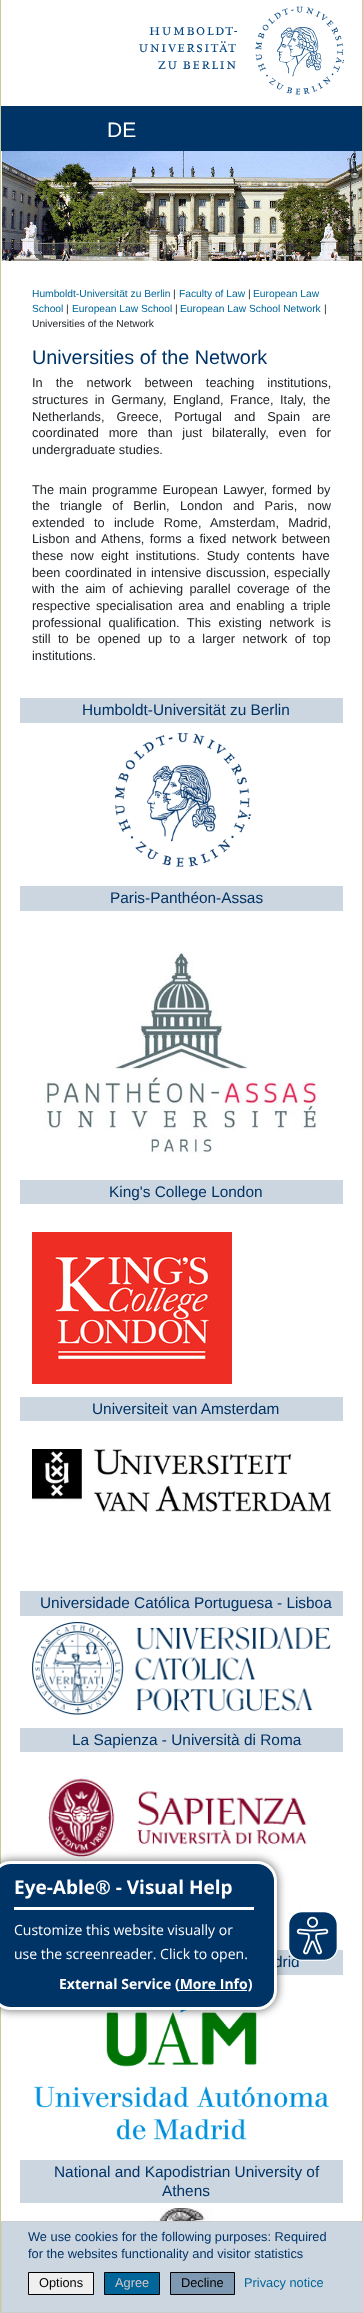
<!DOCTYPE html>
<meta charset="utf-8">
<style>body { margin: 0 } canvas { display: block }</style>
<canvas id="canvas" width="363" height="2313"></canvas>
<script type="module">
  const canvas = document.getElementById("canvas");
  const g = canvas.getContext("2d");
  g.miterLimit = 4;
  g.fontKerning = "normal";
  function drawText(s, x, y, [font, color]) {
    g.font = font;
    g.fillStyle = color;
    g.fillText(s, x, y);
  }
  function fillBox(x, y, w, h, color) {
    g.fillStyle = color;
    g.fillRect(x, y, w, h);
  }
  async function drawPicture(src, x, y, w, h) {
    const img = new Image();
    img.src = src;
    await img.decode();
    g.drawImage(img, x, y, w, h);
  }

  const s1 = ["21px Liberation Sans", "#FFFFFF"];
  const s2 = ["10.25px Liberation Sans", "#006699"];
  const s3 = ["10.25px Liberation Sans", "#212529"];
  const s4 = ["19.8px Liberation Sans", "#003366"];
  const s5 = ["12.8px Liberation Sans", "#212529"];
  const s6 = ["15.4px Liberation Sans", "#003366"];
  const s7 = ["bold 19px Open Sans", "#FFFFFF"];
  const s8 = ["14px Open Sans", "#FFFFFF"];
  const s9 = ["bold 14px Open Sans", "#FFFFFF"];
  const s10 = ["12.8px Liberation Sans", "#003366"];
  const s11 = ["12.8px Liberation Sans", "#000000"];
  const s12 = ["12.8px Liberation Sans", "#D5C7C7"];
  const s13 = ["12.8px Liberation Sans", "#006699"];

  fillBox(0, 0, 363, 2313, "#FFFFFF");
  await drawPicture("pic1.png", 139, 6, 205, 89);
  fillBox(1, 106, 361, 45, "#003366");
  drawText("DE", 107, 137, s1);
  await drawPicture("pic2.png", 2, 151, 360, 110);
  fillBox(362, 0, 1, 2221, "#CCCC99");
  fillBox(0, 0, 1, 2313, "#CCCC99");
  drawText("Humboldt-Universität zu Berlin", 32, 297, s2);
  drawText("|", 173, 297, s3);
  drawText("Faculty of Law", 179, 297, s2);
  drawText("|", 248, 297, s3);
  drawText("European Law", 253, 297, s2);
  drawText("School", 32, 312, s2);
  drawText("|", 66, 312, s3);
  drawText("European Law School", 72, 312, s2);
  drawText("|", 175, 312, s3);
  drawText("European Law School Network", 180, 312, s2);
  drawText("|", 324, 312, s3);
  drawText("Universities of the Network", 32, 327, s3);
  drawText("Universities of the Network", 32, 364, s4);
  g.wordSpacing = "9.5px";
  drawText("In the network between teaching institutions,", 32, 387, s5);
  g.wordSpacing = "3px";
  drawText("structures in Germany, England, France, Italy, the", 32, 404, s5);
  g.wordSpacing = "8.5px";
  drawText("Netherlands, Greece, Portugal and Spain are", 32, 421, s5);
  g.wordSpacing = "6.25px";
  drawText("coordinated more than just bilaterally, even for", 32, 437, s5);
  g.wordSpacing = "0px";
  drawText("undergraduate studies.", 32, 454, s5);
  g.wordSpacing = "1.5px";
  drawText("The main programme European Lawyer, formed by", 32, 494, s5);
  g.wordSpacing = "6.75px";
  drawText("the triangle of Berlin, London and Paris, now", 32, 510, s5);
  g.wordSpacing = "5.75px";
  drawText("extended to include Rome, Amsterdam, Madrid,", 32, 527, s5);
  g.wordSpacing = "1.75px";
  drawText("Lisbon and Athens, forms a fixed network between", 32, 543, s5);
  g.wordSpacing = "3.5px";
  drawText("these now eight institutions. Study contents have", 32, 560, s5);
  g.wordSpacing = "1px";
  drawText("been coordinated in intensive discussion, especially", 32, 577, s5);
  g.wordSpacing = "2.75px";
  drawText("with the aim of achieving parallel coverage of the", 32, 593, s5);
  g.wordSpacing = "2px";
  drawText("respective specialisation area and enabling a triple", 32, 610, s5);
  g.wordSpacing = "3.9px";
  drawText("professional qualification. This existing network is", 32, 627, s5);
  drawText("still to be opened up to a larger network of top", 32, 643, s5);
  g.wordSpacing = "0px";
  drawText("institutions.", 32, 660, s5);
  fillBox(20, 698, 323, 25, "#CCD6E0");
  drawText("Humboldt-Universität zu Berlin", 82, 715, s6);
  await drawPicture("pic3.png", 115, 733, 137, 135);
  fillBox(20, 886, 323, 25, "#CCD6E0");
  drawText("Paris-Panthéon-Assas", 110, 903, s6);
  await drawPicture("pic4.png", 44, 950, 275, 204);
  fillBox(20, 1180, 323, 24, "#CCD6E0");
  drawText("King's College London", 109, 1197, s6);
  await drawPicture("pic5.png", 32, 1232, 200, 152);
  fillBox(20, 1397, 323, 24, "#CCD6E0");
  drawText("Universiteit van Amsterdam", 92, 1414, s6);
  await drawPicture("pic6.png", 32, 1449, 299, 63);
  fillBox(20, 1591, 323, 25, "#CCD6E0");
  drawText("Universidade Católica Portuguesa - Lisboa", 40, 1608, s6);
  await drawPicture("pic7.png", 32, 1622, 299, 93);
  fillBox(20, 1728, 323, 24, "#CCD6E0");
  drawText("La Sapienza - Università di Roma", 72, 1745, s6);
  await drawPicture("pic8.png", 48, 1778, 259, 79);
  fillBox(277, 1950, 66, 25, "#CCD6E0");
  drawText("drid", 274, 1967, s6);
  await drawPicture("pic9.png", 34, 2010, 295, 130);
  fillBox(20, 2160, 323, 43, "#CCD6E0");
  drawText("National and Kapodistrian University of", 54, 2177, s6);
  drawText("Athens", 162, 2196, s6);
  await drawPicture("pic10.png", 86, 2208, 182, 13);
  g.fillStyle = "rgba(0, 0, 0, 0.5)";
  g.filter = "blur(4px)";
  g.beginPath();
  g.roundRect(-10, 1860, 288, 151, 21);
  g.fill();
  g.filter = "none";
  g.fillStyle = "#003366";
  g.beginPath();
  g.roundRect(-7.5, 1862.5, 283, 146, 18.5);
  g.fill();
  g.strokeStyle = "#FFFFFF";
  g.lineWidth = 3;
  g.stroke();
  fillBox(14, 1907, 240, 3, "#FFFFFF");
  drawText("Eye-Able® - Visual Help", 14, 1894, s7);
  drawText("Customize this website visually or", 14, 1935, s8);
  drawText("use the screenreader. Click to open.", 14, 1959, s8);
  drawText("External Service (More Info)", 59, 1989, s9);
  fillBox(179, 1990, 68, 1, "#FFFFFF");
  await drawPicture("pic11.png", 288, 1911, 50, 50);
  g.fillStyle = "#CCD6E0";
  g.beginPath();
  g.rect(1.5, 2221.5, 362, 91);
  g.fill();
  g.strokeStyle = "#CCCCCC";
  g.lineWidth = 1;
  g.stroke();
  drawText("We use cookies for the following purposes: Required", 28, 2241, s10);
  drawText("for the websites functionality and visitor statistics", 28, 2258, s10);
  g.fillStyle = "#EFEFEF";
  g.beginPath();
  g.rect(28.5, 2272.5, 65, 22);
  g.fill();
  g.strokeStyle = "#000000";
  g.stroke();
  drawText("Options", 39, 2287, s11);
  g.fillStyle = "#006699";
  g.beginPath();
  g.rect(104.5, 2272.5, 55, 22);
  g.fill();
  g.stroke();
  drawText("Agree", 115, 2287, s12);
  g.fillStyle = "#8099B2";
  g.beginPath();
  g.rect(170.5, 2272.5, 64, 22);
  g.fill();
  g.stroke();
  drawText("Decline", 181, 2287, s11);
  drawText("Privacy notice", 244, 2287, s13);
</script>
